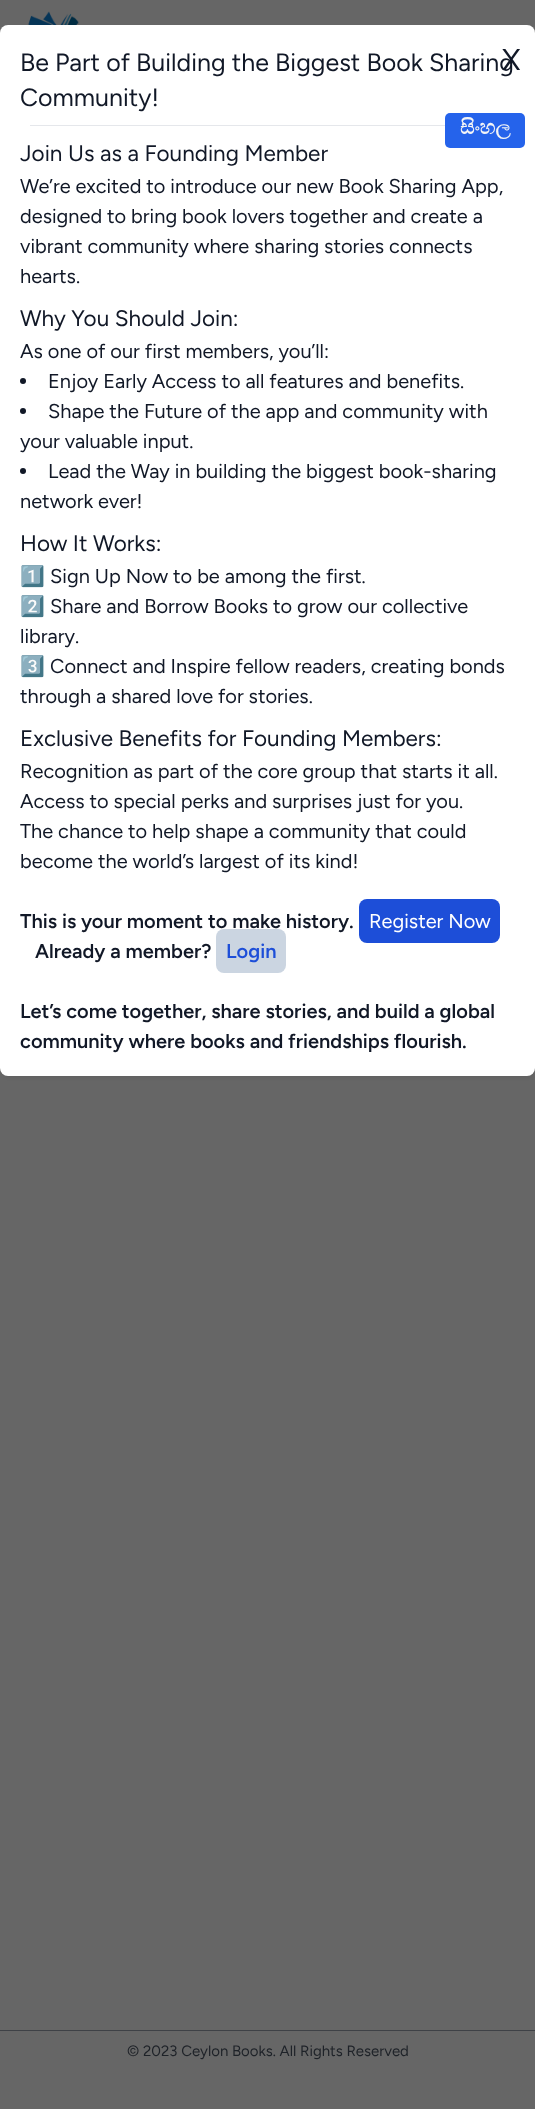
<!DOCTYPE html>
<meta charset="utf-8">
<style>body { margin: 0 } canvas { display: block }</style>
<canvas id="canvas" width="535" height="2109"></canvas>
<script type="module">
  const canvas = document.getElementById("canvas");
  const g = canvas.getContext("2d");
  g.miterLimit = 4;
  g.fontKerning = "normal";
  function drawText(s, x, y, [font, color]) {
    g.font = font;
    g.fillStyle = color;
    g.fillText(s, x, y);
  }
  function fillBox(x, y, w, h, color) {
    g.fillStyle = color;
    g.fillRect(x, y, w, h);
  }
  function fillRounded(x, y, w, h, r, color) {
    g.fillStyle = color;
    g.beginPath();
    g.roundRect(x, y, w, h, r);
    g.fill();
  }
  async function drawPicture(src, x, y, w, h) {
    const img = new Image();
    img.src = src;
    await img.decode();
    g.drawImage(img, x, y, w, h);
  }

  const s1 = ["300 25px Figtree", "#111827"];
  const s2 = ["300 30px Figtree", "#111827"];
  const s3 = ["300 22.5px Figtree", "#111827"];
  const s4 = ["300 20px Figtree", "#111827"];
  const s5 = ["20px Noto Color Emoji", "#111827"];
  const s6 = ["600 20px Figtree", "#111827"];
  const s7 = ["300 20px Figtree", "#FFFFFF"];
  const s8 = ["600 20px Figtree", "#1D4ED8"];
  const s9 = ["bold 20px FreeSerif", "#F3F4F6"];
  const s10 = ["300 15px Figtree", "#1E2228"];

  fillBox(0, 0, 535, 2109, "#666666");
  await drawPicture("pic1.png", 28, 11, 51, 14);
  g.fillStyle = "rgba(0, 0, 0, 0.1)";
  g.filter = "blur(2.5px)";
  g.beginPath();
  g.roundRect(3, 30, 530, 1046, 5);
  g.fill();
  g.filter = "none";
  fillRounded(0, 25, 535, 1051, 8, "#FFFFFF");
  drawText("Be Part of Building the Biggest Book Sharing", 20, 71, s1);
  drawText("X", 502, 70, s2);
  drawText("Community!", 20, 106, s1);
  fillBox(30, 125, 415, 1, "#E5E7EB");
  drawText("Join Us as a Founding Member", 20, 161, s3);
  drawText("We’re excited to introduce our new Book Sharing App,", 20, 193, s4);
  drawText("designed to bring book lovers together and create a", 20, 223, s4);
  drawText("vibrant community where sharing stories connects", 20, 253, s4);
  drawText("hearts.", 20, 283, s4);
  drawText("Why You Should Join:", 20, 326, s3);
  drawText("As one of our first members, you’ll:", 20, 358, s4);
  g.beginPath();
  g.arc(23, 381, 3, 0, Math.PI * 2);
  g.fill();
  drawText("Enjoy Early Access to all features and benefits.", 48, 388, s4);
  g.beginPath();
  g.arc(23, 411, 3, 0, Math.PI * 2);
  g.fill();
  drawText("Shape the Future of the app and community with", 48, 418, s4);
  drawText("your valuable input.", 20, 448, s4);
  g.beginPath();
  g.arc(23, 471, 3, 0, Math.PI * 2);
  g.fill();
  drawText("Lead the Way in building the biggest book-sharing", 48, 478, s4);
  drawText("network ever!", 20, 508, s4);
  drawText("How It Works:", 20, 551, s3);
  drawText("1️⃣", 20, 583, s5);
  drawText("Sign Up Now to be among the first.", 50, 583, s4);
  drawText("2️⃣", 20, 613, s5);
  drawText("Share and Borrow Books to grow our collective", 50, 613, s4);
  drawText("library.", 20, 643, s4);
  drawText("3️⃣", 20, 673, s5);
  drawText("Connect and Inspire fellow readers, creating bonds", 50, 673, s4);
  drawText("through a shared love for stories.", 20, 703, s4);
  drawText("Exclusive Benefits for Founding Members:", 20, 746, s3);
  drawText("Recognition as part of the core group that starts it all.", 20, 778, s4);
  drawText("Access to special perks and surprises just for you.", 20, 808, s4);
  drawText("The chance to help shape a community that could", 20, 838, s4);
  drawText("become the world’s largest of its kind!", 20, 868, s4);
  drawText("This is your moment to make history.", 20, 928, s6);
  fillRounded(359, 899, 141, 44, 8, "#1D4ED8");
  drawText("Register Now", 369, 928, s7);
  drawText("Already a member?", 35, 958, s6);
  fillRounded(216, 929, 70, 44, 8, "#CBD5E1");
  drawText("Login", 226, 958, s8);
  drawText("Let’s come together, share stories, and build a global", 20, 1018, s6);
  drawText("community where books and friendships flourish.", 20, 1048, s6);
  fillRounded(445, 113, 80, 35, 5, "#2563EB");
  drawText("සිංහල", 460, 134, s9);
  fillBox(0, 2030, 535, 1, "#3E4146");
  drawText("© 2023 Ceylon Books. All Rights Reserved", 127, 2056, s10);
</script>
